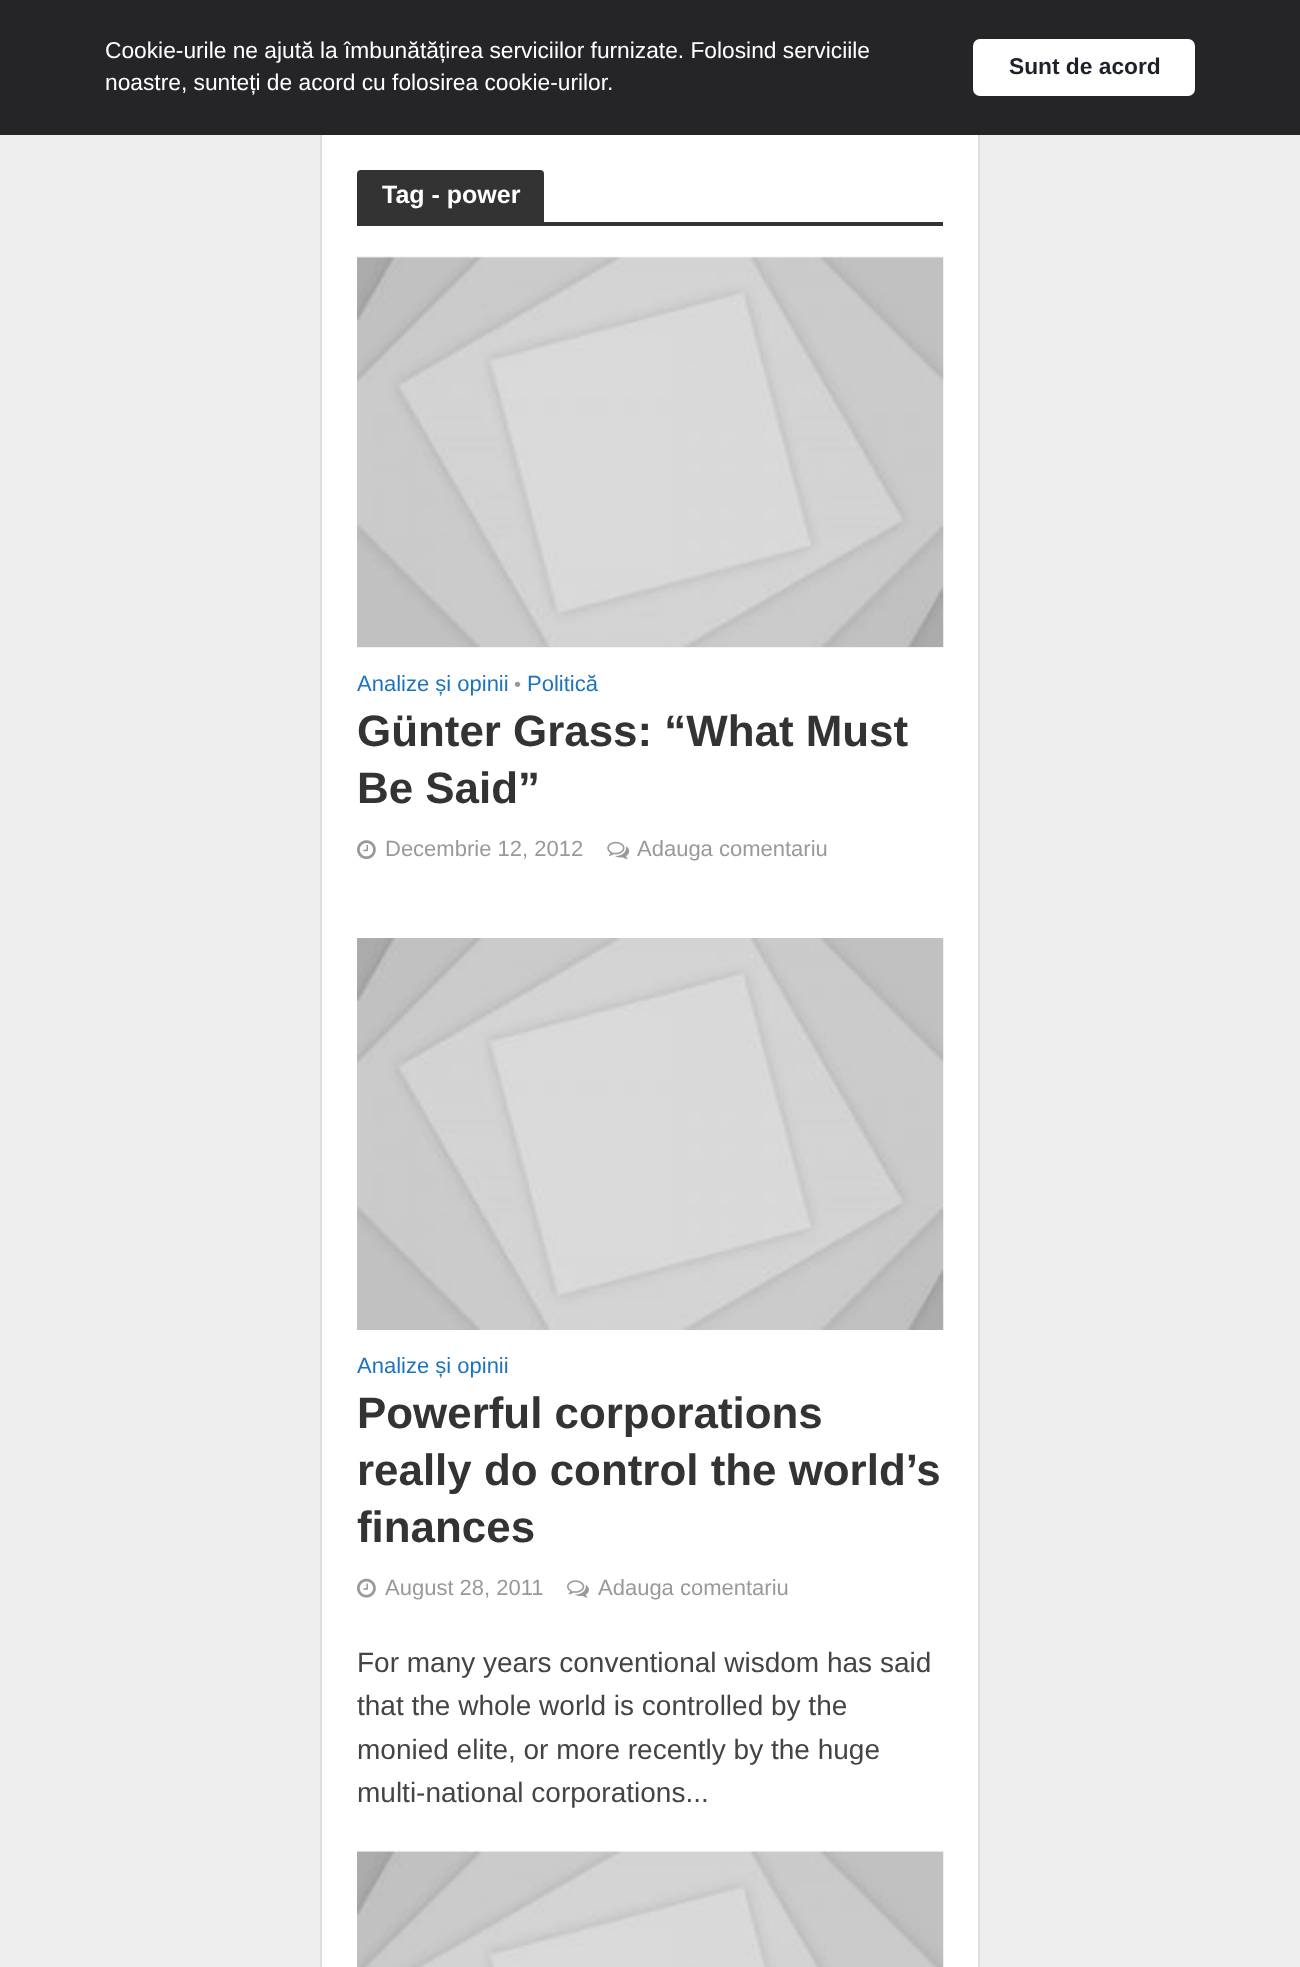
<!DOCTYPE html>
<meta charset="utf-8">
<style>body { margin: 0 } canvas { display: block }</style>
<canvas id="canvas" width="1300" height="1967"></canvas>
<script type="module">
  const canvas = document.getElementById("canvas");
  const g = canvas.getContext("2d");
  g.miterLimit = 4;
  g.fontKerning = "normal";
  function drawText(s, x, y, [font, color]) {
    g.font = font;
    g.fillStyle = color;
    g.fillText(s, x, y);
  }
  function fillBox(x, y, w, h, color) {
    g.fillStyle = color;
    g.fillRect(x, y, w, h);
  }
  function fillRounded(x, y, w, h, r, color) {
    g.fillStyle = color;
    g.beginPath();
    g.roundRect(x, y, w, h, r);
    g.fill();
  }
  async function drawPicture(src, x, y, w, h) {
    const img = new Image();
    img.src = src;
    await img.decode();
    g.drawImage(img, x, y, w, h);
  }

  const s1 = ["22.75px Liberation Sans", "#FFFFFF"];
  const s2 = ["bold 22.75px Liberation Sans", "#1D2129"];
  const s3 = ["bold 25px Liberation Sans", "#FFFFFF"];
  const s4 = ["22px Liberation Sans", "#1E73BE"];
  const s5 = ["20px Liberation Sans", "#999999"];
  const s6 = ["bold 43.9px Liberation Sans", "#333333"];
  const s7 = ["22px Liberation Sans", "#999999"];
  const s8 = ["28px Liberation Sans", "#444444"];

  fillBox(0, 0, 1300, 1967, "#EEEEEE");
  g.strokeStyle = "#DDDDDD";
  g.lineWidth = 2;
  g.strokeRect(321, 134, 658, 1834);
  fillBox(0, 0, 1300, 135, "#252528");
  drawText("Cookie-urile ne ajută la îmbunătățirea serviciilor furnizate. Folosind serviciile", 105, 58, s1);
  drawText("noastre, sunteți de acord cu folosirea cookie-urilor.", 105, 90, s1);
  fillRounded(973, 39, 222, 57, 7, "#FFFFFF");
  drawText("Sunt de acord", 1009, 74, s2);
  fillBox(322, 135, 656, 1832, "#FFFFFF");
  g.fillStyle = "#333333";
  g.beginPath();
  g.roundRect(357, 170, 187, 52, [4, 4, 0, 0]);
  g.fill();
  drawText("Tag - power", 382, 203, s3);
  fillBox(357, 222, 586, 4, "#333333");
  fillBox(357, 257, 586, 391, "#F3F3F3");
  await drawPicture("pic1.png", 357, 256, 587, 391);
  drawText("Analize și opinii", 357, 691, s4);
  drawText("•", 514, 691, s5);
  drawText("Politică", 527, 691, s4);
  drawText("Günter Grass: “What Must", 357, 746, s6);
  drawText("Be Said”", 357, 803, s6);
  await drawPicture("pic2.png", 357, 840, 19, 20);
  drawText("Decembrie 12, 2012", 385, 856, s7);
  await drawPicture("pic3.png", 607, 841, 23, 18);
  drawText("Adauga comentariu", 637, 856, s7);
  await drawPicture("pic4.png", 357, 938, 587, 392);
  drawText("Analize și opinii", 357, 1373, s4);
  drawText("Powerful corporations", 357, 1428, s6);
  drawText("really do control the world’s", 357, 1485, s6);
  drawText("finances", 357, 1542, s6);
  await drawPicture("pic5.png", 357, 1578, 19, 20);
  drawText("August 28, 2011", 385, 1595, s7);
  await drawPicture("pic6.png", 567, 1580, 22, 18);
  drawText("Adauga comentariu", 598, 1595, s7);
  drawText("For many years conventional wisdom has said", 357, 1672, s8);
  drawText("that the whole world is controlled by the", 357, 1715, s8);
  drawText("monied elite, or more recently by the huge", 357, 1759, s8);
  drawText("multi-national corporations...", 357, 1802, s8);
  await drawPicture("pic7.png", 357, 1850, 587, 117);
</script>
